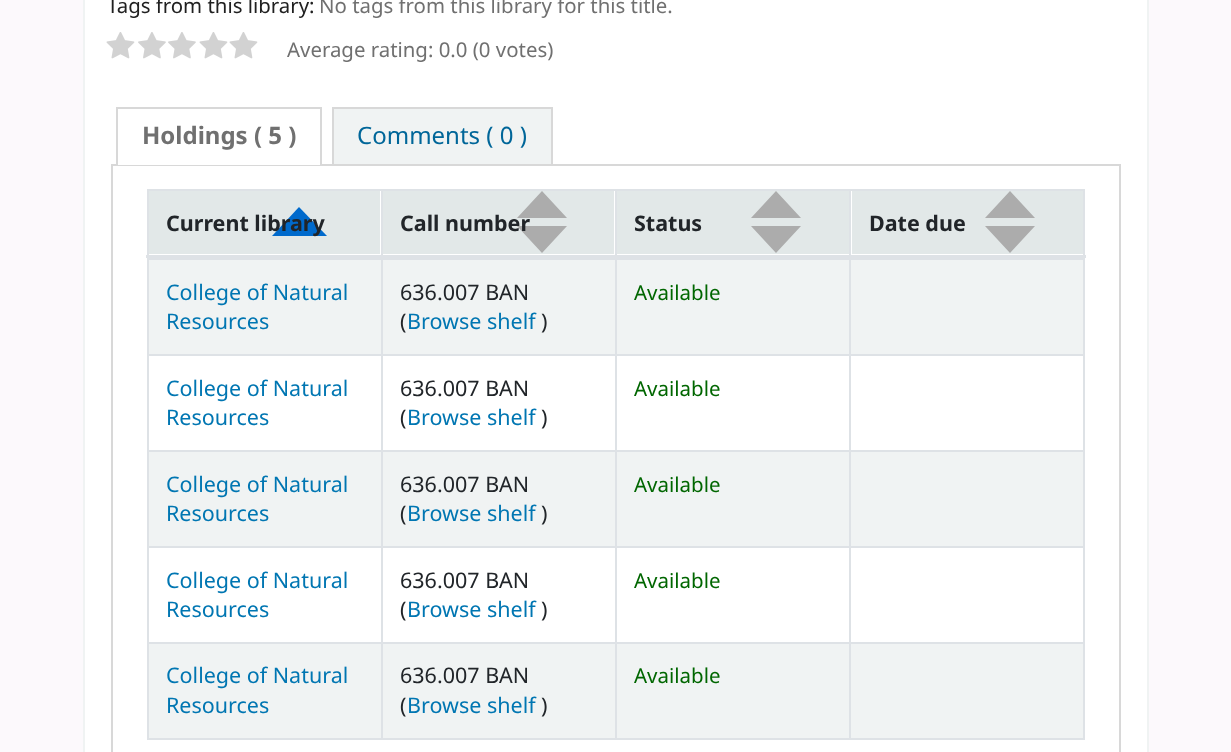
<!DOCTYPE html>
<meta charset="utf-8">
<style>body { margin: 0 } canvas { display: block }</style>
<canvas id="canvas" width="1231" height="752"></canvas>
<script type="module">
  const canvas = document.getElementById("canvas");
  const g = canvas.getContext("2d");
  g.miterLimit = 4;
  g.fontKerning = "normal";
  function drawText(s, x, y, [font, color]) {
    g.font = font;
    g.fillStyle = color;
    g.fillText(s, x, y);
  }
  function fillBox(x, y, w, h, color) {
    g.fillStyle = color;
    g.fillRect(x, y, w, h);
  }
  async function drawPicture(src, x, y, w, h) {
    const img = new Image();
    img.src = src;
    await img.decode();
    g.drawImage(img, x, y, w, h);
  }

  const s1 = ["20.4px Noto Sans", "#202020"];
  const s2 = ["20.4px Noto Sans", "#707070"];
  const s3 = ["bold 24px Noto Sans", "#707070"];
  const s4 = ["24px Noto Sans", "#006699"];
  const s5 = ["bold 21.5px Noto Sans", "#212529"];
  const s6 = ["21.5px Noto Sans", "#0076B2"];
  const s7 = ["21.5px Noto Sans", "#212529"];
  const s8 = ["20.5px Noto Sans", "#006600"];

  fillBox(0, 0, 1231, 752, "#FCF9FC");
  g.fillStyle = "#FFFFFF";
  g.beginPath();
  g.rect(84, -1, 1064, 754);
  g.fill();
  g.strokeStyle = "#F0F3F3";
  g.lineWidth = 2;
  g.stroke();
  drawText("Tags from this library:", 107, 13, s1);
  drawText("No tags from this library for this title.", 319, 13, s2);
  await drawPicture("pic1.png", 106, 32, 29, 27);
  await drawPicture("pic2.png", 138, 32, 28, 27);
  await drawPicture("pic2.png", 168, 32, 28, 27);
  await drawPicture("pic1.png", 199, 32, 29, 27);
  await drawPicture("pic1.png", 229, 32, 29, 27);
  drawText("Average rating: 0.0 (0 votes)", 287, 57, s2);
  g.strokeStyle = "#D8D8D8";
  g.strokeRect(112, 165, 1008, 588);
  fillBox(118, 164, 202, 1, "#FFFFFF");
  fillBox(116, 107, 205, 2, "#D8D8D8");
  fillBox(320, 107, 2, 58, "#D8D8D8");
  fillBox(116, 107, 2, 58, "#D8D8D8");
  drawText("Holdings ( 5 )", 142, 144, s3);
  fillBox(334, 109, 217, 55, "#F0F3F3");
  fillBox(332, 107, 220, 2, "#D8D8D8");
  fillBox(551, 107, 2, 57, "#D8D8D8");
  fillBox(332, 107, 2, 57, "#D8D8D8");
  drawText("Comments ( 0 )", 357, 144, s4);
  fillBox(147, 189, 938, 2, "#DEE2E6");
  fillBox(1083, 189, 2, 551, "#DEE2E6");
  fillBox(147, 738, 938, 2, "#DEE2E6");
  fillBox(147, 189, 2, 551, "#DEE2E6");
  fillBox(149, 191, 231, 63, "#E2E8E8");
  g.fillStyle = "#006ACC";
  g.beginPath();
  g.moveTo(327, 236);
  g.lineTo(272, 236);
  g.lineTo(299, 207);
  g.closePath();
  g.fill();
  drawText("Current library", 166, 231, s5);
  fillBox(383, 191, 231, 63, "#E2E8E8");
  g.fillStyle = "#ACACAC";
  g.beginPath();
  g.moveTo(567, 226);
  g.lineTo(517, 226);
  g.lineTo(542, 253);
  g.closePath();
  g.moveTo(567, 218);
  g.lineTo(517, 218);
  g.lineTo(542, 191);
  g.closePath();
  g.fill();
  drawText("Call number", 400, 231, s5);
  fillBox(617, 191, 232, 63, "#E2E8E8");
  g.fillStyle = "#ACACAC";
  g.beginPath();
  g.moveTo(801, 226);
  g.lineTo(751, 226);
  g.lineTo(776, 253);
  g.closePath();
  g.moveTo(801, 218);
  g.lineTo(751, 218);
  g.lineTo(776, 191);
  g.closePath();
  g.fill();
  drawText("Status", 634, 231, s5);
  fillBox(852, 191, 231, 63, "#E2E8E8");
  g.fillStyle = "#ACACAC";
  g.beginPath();
  g.moveTo(1035, 226);
  g.lineTo(985, 226);
  g.lineTo(1010, 253);
  g.closePath();
  g.moveTo(1035, 218);
  g.lineTo(985, 218);
  g.lineTo(1010, 191);
  g.closePath();
  g.fill();
  fillBox(849, 258, 236, 2, "#DEE2E6");
  fillBox(849, 354, 236, 2, "#DEE2E6");
  fillBox(849, 450, 236, 2, "#DEE2E6");
  fillBox(849, 546, 236, 2, "#DEE2E6");
  fillBox(849, 642, 236, 2, "#DEE2E6");
  fillBox(849, 642, 2, 98, "#DEE2E6");
  fillBox(615, 642, 236, 2, "#DEE2E6");
  fillBox(849, 546, 2, 98, "#DEE2E6");
  fillBox(615, 546, 236, 2, "#DEE2E6");
  fillBox(849, 450, 2, 98, "#DEE2E6");
  fillBox(615, 450, 236, 2, "#DEE2E6");
  fillBox(849, 354, 2, 98, "#DEE2E6");
  fillBox(615, 354, 236, 2, "#DEE2E6");
  fillBox(849, 189, 2, 167, "#DEE2E6");
  fillBox(615, 258, 236, 2, "#DEE2E6");
  fillBox(615, 642, 2, 98, "#DEE2E6");
  fillBox(381, 642, 236, 2, "#DEE2E6");
  fillBox(615, 546, 2, 98, "#DEE2E6");
  fillBox(381, 546, 236, 2, "#DEE2E6");
  fillBox(615, 450, 2, 98, "#DEE2E6");
  fillBox(381, 450, 236, 2, "#DEE2E6");
  fillBox(615, 354, 2, 98, "#DEE2E6");
  fillBox(381, 354, 236, 2, "#DEE2E6");
  fillBox(615, 189, 2, 167, "#DEE2E6");
  fillBox(381, 258, 236, 2, "#DEE2E6");
  fillBox(381, 642, 2, 98, "#DEE2E6");
  fillBox(147, 642, 236, 2, "#DEE2E6");
  fillBox(381, 546, 2, 98, "#DEE2E6");
  fillBox(147, 546, 236, 2, "#DEE2E6");
  fillBox(381, 450, 2, 98, "#DEE2E6");
  fillBox(147, 450, 236, 2, "#DEE2E6");
  fillBox(381, 354, 2, 98, "#DEE2E6");
  fillBox(147, 354, 236, 2, "#DEE2E6");
  fillBox(381, 189, 2, 167, "#DEE2E6");
  fillBox(146, 255, 940, 3, "#DEE2E6");
  drawText("Date due", 869, 231, s5);
  fillBox(149, 260, 232, 94, "#F0F3F3");
  fillBox(147, 258, 236, 2, "#DEE2E6");
  drawText("College of Natural", 166, 300, s6);
  drawText("Resources", 166, 329, s6);
  fillBox(383, 260, 232, 94, "#F0F3F3");
  drawText("636.007 BAN", 400, 300, s7);
  drawText("(", 400, 329, s7);
  drawText("Browse shelf", 407, 329, s6);
  drawText(")", 541, 329, s7);
  fillBox(617, 260, 232, 94, "#F0F3F3");
  drawText("Available", 634, 300, s8);
  fillBox(851, 260, 232, 94, "#F0F3F3");
  drawText("College of Natural", 166, 396, s6);
  drawText("Resources", 166, 425, s6);
  drawText("636.007 BAN", 400, 396, s7);
  drawText("(", 400, 425, s7);
  drawText("Browse shelf", 407, 425, s6);
  drawText(")", 541, 425, s7);
  drawText("Available", 634, 396, s8);
  fillBox(149, 452, 232, 94, "#F0F3F3");
  drawText("College of Natural", 166, 492, s6);
  drawText("Resources", 166, 521, s6);
  fillBox(383, 452, 232, 94, "#F0F3F3");
  drawText("636.007 BAN", 400, 492, s7);
  drawText("(", 400, 521, s7);
  drawText("Browse shelf", 407, 521, s6);
  drawText(")", 541, 521, s7);
  fillBox(617, 452, 232, 94, "#F0F3F3");
  drawText("Available", 634, 492, s8);
  fillBox(851, 452, 232, 94, "#F0F3F3");
  drawText("College of Natural", 166, 588, s6);
  drawText("Resources", 166, 617, s6);
  drawText("636.007 BAN", 400, 588, s7);
  drawText("(", 400, 617, s7);
  drawText("Browse shelf", 407, 617, s6);
  drawText(")", 541, 617, s7);
  drawText("Available", 634, 588, s8);
  fillBox(149, 644, 232, 94, "#F0F3F3");
  drawText("College of Natural", 166, 683, s6);
  drawText("Resources", 166, 713, s6);
  fillBox(383, 644, 232, 94, "#F0F3F3");
  drawText("636.007 BAN", 400, 683, s7);
  drawText("(", 400, 713, s7);
  drawText("Browse shelf", 407, 713, s6);
  drawText(")", 541, 713, s7);
  fillBox(617, 644, 232, 94, "#F0F3F3");
  drawText("Available", 634, 683, s8);
  fillBox(851, 644, 232, 94, "#F0F3F3");
</script>
